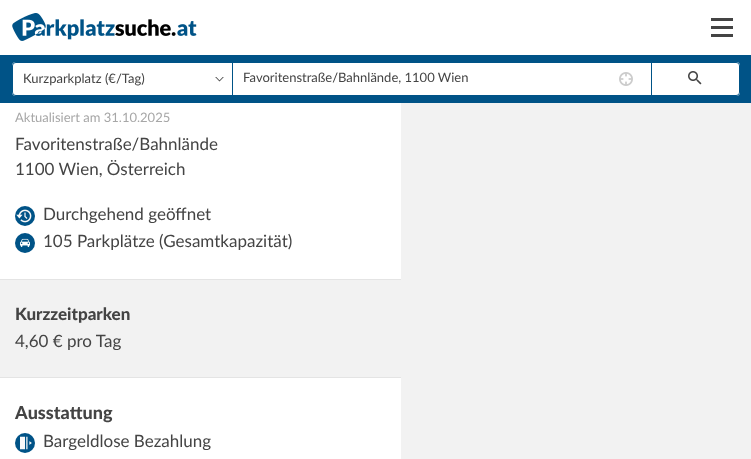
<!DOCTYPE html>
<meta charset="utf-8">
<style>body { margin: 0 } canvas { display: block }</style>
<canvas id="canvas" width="751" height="459"></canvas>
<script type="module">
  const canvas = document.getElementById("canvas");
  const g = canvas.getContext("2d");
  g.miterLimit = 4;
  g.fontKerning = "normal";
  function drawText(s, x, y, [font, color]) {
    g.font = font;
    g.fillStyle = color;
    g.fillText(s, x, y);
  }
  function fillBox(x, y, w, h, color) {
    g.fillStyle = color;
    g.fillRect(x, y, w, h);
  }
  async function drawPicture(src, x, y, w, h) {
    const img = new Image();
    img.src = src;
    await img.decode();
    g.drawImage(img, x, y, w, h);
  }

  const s1 = ["13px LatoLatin", "#444444"];
  const s2 = ["13px LatoLatin", "#A7A7A7"];
  const s3 = ["17px LatoLatin", "#444444"];
  const s4 = ["900 17px LatoLatin", "#444444"];
  const s5 = ["900 18px LatoLatin", "#444444"];

  fillBox(0, 0, 751, 459, "#F2F2F2");
  fillBox(0, 0, 751, 55, "#FFFFFF");
  await drawPicture("pic1.png", 12, 13, 185, 28);
  fillBox(711, 18, 22, 3, "#444444");
  fillBox(711, 26, 22, 3, "#444444");
  fillBox(711, 34, 22, 3, "#444444");
  fillBox(0, 55, 751, 48, "#005387");
  g.fillStyle = "#FFFFFF";
  g.beginPath();
  g.roundRect(12, 62, 220, 34, [4, 0, 0, 4]);
  g.fill();
  g.fillStyle = "#005387";
  g.beginPath();
  g.moveTo(16, 62);
  g.lineTo(232, 62);
  g.lineTo(232, 96);
  g.lineTo(16, 96);
  g.bezierCurveTo(14, 96, 12, 94, 12, 92);
  g.lineTo(12, 66);
  g.bezierCurveTo(12, 64, 14, 62, 16, 62);
  g.closePath();
  g.moveTo(16, 63);
  g.lineTo(232, 63);
  g.lineTo(232, 95);
  g.lineTo(16, 95);
  g.bezierCurveTo(14, 95, 13, 94, 13, 92);
  g.lineTo(13, 66);
  g.bezierCurveTo(13, 64, 14, 63, 16, 63);
  g.closePath();
  g.fill("evenodd");
  drawText("Kurzparkplatz (€/Tag)", 23, 83, s1);
  await drawPicture("pic2.png", 215, 77, 9, 5);
  fillBox(233, 63, 418, 32, "#FFFFFF");
  drawText("Favoritenstraße/Bahnlände, 1100 Wien", 243, 82, s1);
  await drawPicture("pic3.png", 619, 72, 14, 14);
  g.fillStyle = "#FFFFFF";
  g.beginPath();
  g.roundRect(652, 62, 88, 34, [0, 4, 4, 0]);
  g.fill();
  g.fillStyle = "#005387";
  g.beginPath();
  g.moveTo(652, 62);
  g.lineTo(736, 62);
  g.bezierCurveTo(738, 62, 740, 64, 740, 66);
  g.lineTo(740, 92);
  g.bezierCurveTo(740, 94, 738, 96, 736, 96);
  g.lineTo(652, 96);
  g.closePath();
  g.moveTo(652, 63);
  g.lineTo(736, 63);
  g.bezierCurveTo(738, 63, 739, 64, 739, 66);
  g.lineTo(739, 92);
  g.bezierCurveTo(739, 94, 738, 95, 736, 95);
  g.lineTo(652, 95);
  g.closePath();
  g.fill("evenodd");
  await drawPicture("pic4.png", 688, 71, 14, 14);
  fillBox(0, 103, 401, 356, "#FFFFFF");
  drawText("Aktualisiert am 31.10.2025", 15, 122, s2);
  drawText("Favoritenstraße/Bahnlände", 15, 150, s3);
  drawText("1100 Wien, Österreich", 15, 175, s3);
  g.fillStyle = "#005387";
  g.beginPath();
  g.arc(25, 216, 10, 0, Math.PI * 2);
  g.fill();
  await drawPicture("pic5.png", 16, 209, 16, 14);
  drawText("Durchgehend geöffnet", 43, 220, s3);
  g.fillStyle = "#005387";
  g.beginPath();
  g.arc(25, 243, 10, 0, Math.PI * 2);
  g.fill();
  await drawPicture("pic6.png", 20, 238, 10, 10);
  drawText("105 Parkplätze (Gesamtkapazität)", 43, 247, s3);
  fillBox(0, 280, 401, 97, "#F2F2F2");
  fillBox(0, 279, 401, 1, "#E4E4E4");
  fillBox(0, 377, 401, 1, "#E4E4E4");
  drawText("Kurzzeitparken", 15, 320, s4);
  drawText("4,60 € pro Tag", 15, 347, s3);
  drawText("Ausstattung", 15, 419, s5);
  g.fillStyle = "#005387";
  g.beginPath();
  g.arc(25, 443, 10, 0, Math.PI * 2);
  g.fill();
  await drawPicture("pic7.png", 20, 436, 12, 14);
  drawText("Bargeldlose Bezahlung", 43, 447, s3);
</script>
